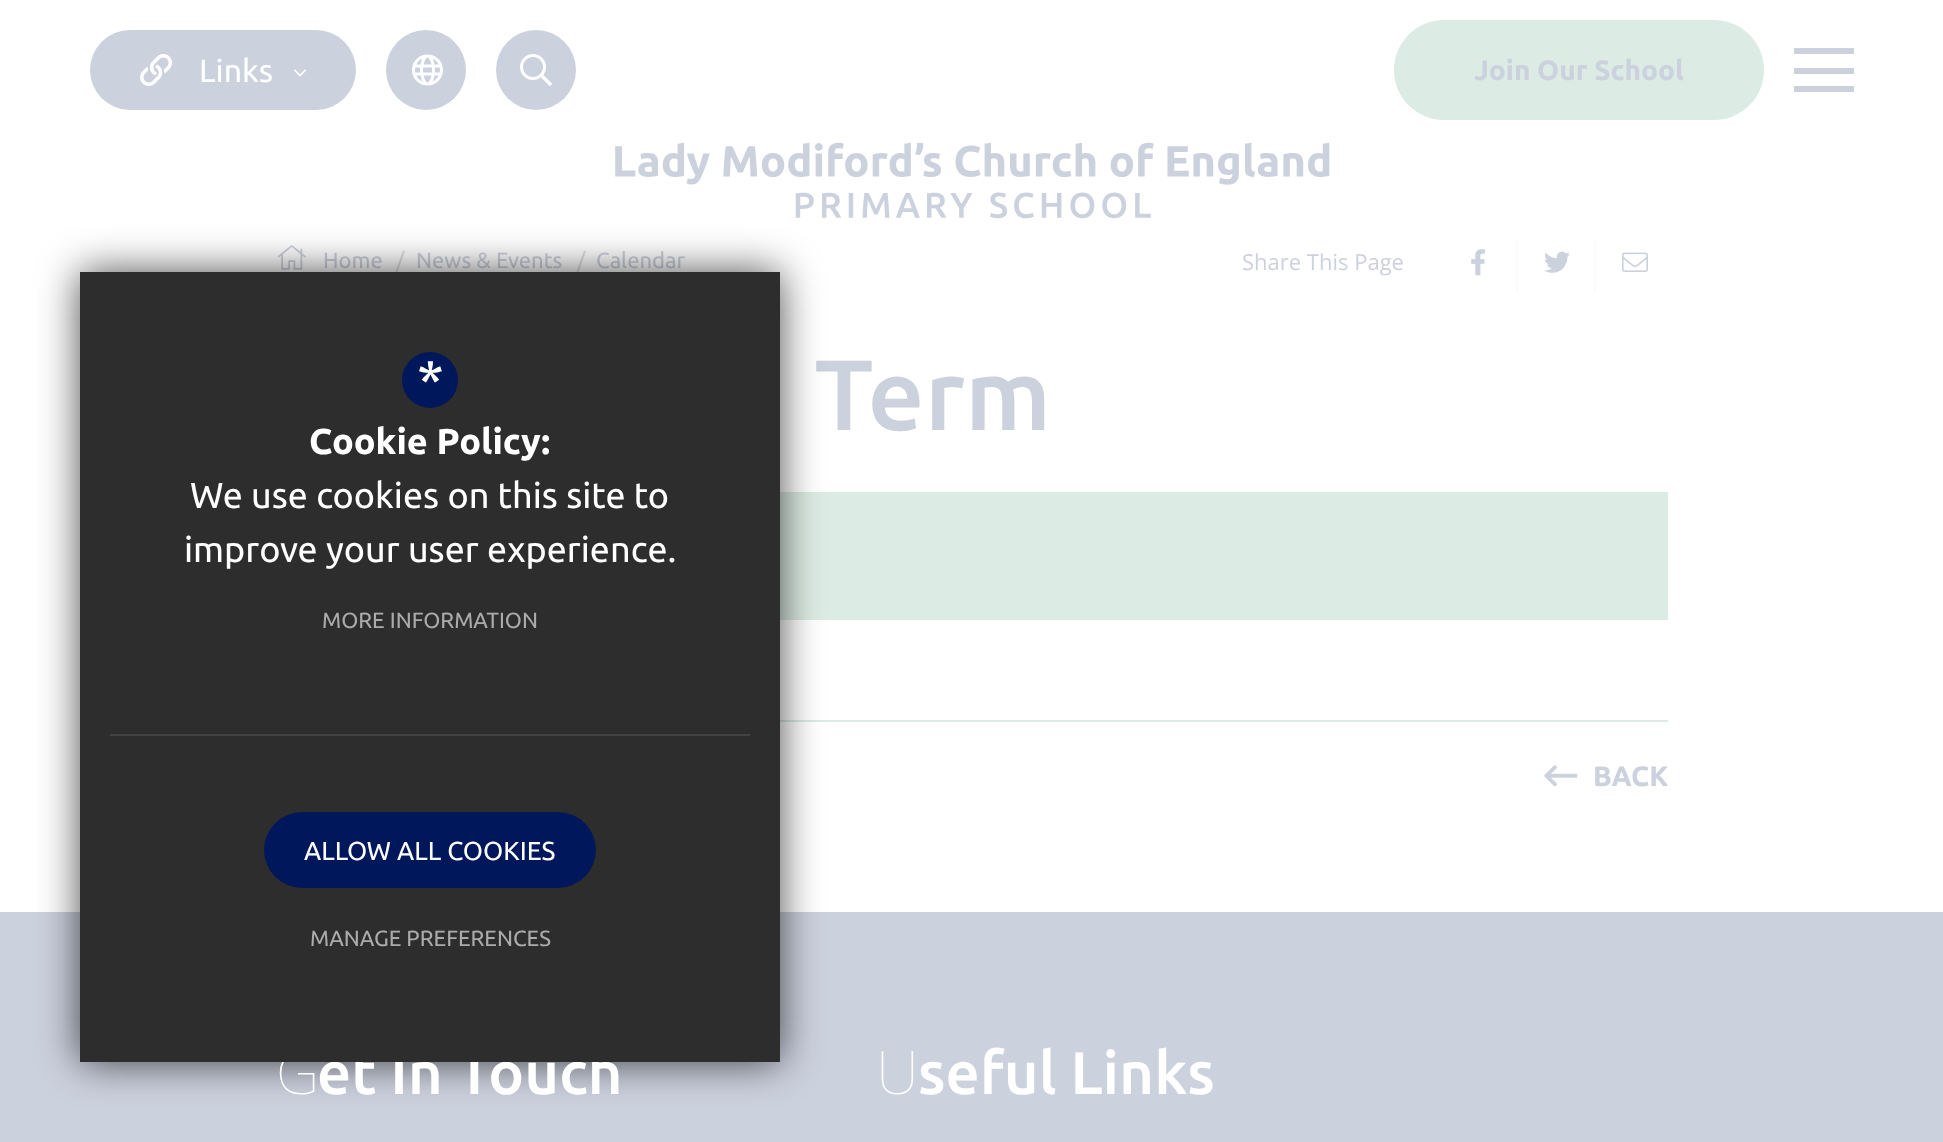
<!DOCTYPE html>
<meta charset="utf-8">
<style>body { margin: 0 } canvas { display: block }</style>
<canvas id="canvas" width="1943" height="1142"></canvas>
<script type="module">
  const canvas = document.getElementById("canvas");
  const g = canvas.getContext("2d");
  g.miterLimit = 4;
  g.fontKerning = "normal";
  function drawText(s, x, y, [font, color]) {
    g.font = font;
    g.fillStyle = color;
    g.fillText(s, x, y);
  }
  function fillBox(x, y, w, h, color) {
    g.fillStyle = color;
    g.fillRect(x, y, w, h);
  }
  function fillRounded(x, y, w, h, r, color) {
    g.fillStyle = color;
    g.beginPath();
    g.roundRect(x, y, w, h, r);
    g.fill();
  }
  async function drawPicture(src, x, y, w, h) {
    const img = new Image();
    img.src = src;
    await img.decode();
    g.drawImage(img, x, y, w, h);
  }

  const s1 = ["32px Ubuntu", "#FFFFFF"];
  const s2 = ["bold 28px Ubuntu", "#CCD1DE"];
  const s3 = ["22px Ubuntu", "#CCD1DE"];
  const s4 = ["22px Ubuntu", "#E0E0E0"];
  const s5 = ["22px Open Sans", "#CCD1DE"];
  const s6 = ["500 100px Ubuntu", "#CCD1DE"];
  const s7 = ["100 60px Noto Sans", "#FFFFFF"];
  const s8 = ["500 60px Ubuntu", "#FFFFFF"];
  const s9 = ["56px Ubuntu", "#FFFFFF"];
  const s10 = ["bold 36px Ubuntu", "#FFFFFF"];
  const s11 = ["36px Ubuntu", "#FFFFFF"];
  const s12 = ["22px Ubuntu", "#ABABAB"];
  const s13 = ["26px Ubuntu", "#FFFFFF"];

  fillBox(0, 0, 1943, 1142, "#FFFFFF");
  fillBox(1516, 232, 2, 60, "#FCFAFA");
  fillBox(1594, 232, 2, 60, "#FCFAFA");
  fillBox(1516, 232, 80, 8, "#FFFFFF");
  fillRounded(90, 30, 266, 80, 40, "#CCD1DE");
  await drawPicture("pic1.png", 140, 54, 33, 32);
  drawText("Links", 199, 82, s1);
  await drawPicture("pic2.png", 294, 69, 12, 8);
  g.fillStyle = "#CCD1DE";
  g.beginPath();
  g.arc(426, 70, 40, 0, Math.PI * 2);
  g.fill();
  await drawPicture("pic3.png", 412, 54, 31, 32);
  g.beginPath();
  g.arc(536, 70, 40, 0, Math.PI * 2);
  g.fill();
  await drawPicture("pic4.png", 520, 54, 32, 32);
  fillRounded(1394, 20, 370, 100, 50, "#DCEBE3");
  drawText("Join Our School", 1474, 80, s2);
  fillBox(1794, 48, 60, 6, "#CCD1DE");
  fillBox(1794, 68, 60, 6, "#CCD1DE");
  fillBox(1794, 86, 60, 6, "#CCD1DE");
  await drawPicture("pic5.png", 615, 142, 715, 77);
  await drawPicture("pic6.png", 277, 245, 29, 25);
  drawText("Home", 323, 268, s3);
  drawText("/", 396, 268, s4);
  drawText("News & Events", 416, 268, s3);
  drawText("/", 577, 268, s4);
  drawText("Calendar", 596, 268, s3);
  drawText("Share This Page", 1242, 270, s5);
  await drawPicture("pic7.png", 1471, 249, 15, 27);
  await drawPicture("pic8.png", 1544, 251, 26, 22);
  await drawPicture("pic9.png", 1622, 252, 26, 20);
  drawText("Term", 815, 430, s6);
  fillBox(780, 492, 888, 128, "#DCEBE3");
  fillBox(780, 720, 888, 2, "#DCEBE3");
  await drawPicture("pic10.png", 1544, 765, 34, 22);
  drawText("BACK", 1593, 786, s2);
  fillBox(0, 912, 1943, 230, "#CCD1DE");
  g.fillStyle = "rgba(0, 0, 0, 0.7)";
  g.filter = "blur(20px)";
  g.beginPath();
  g.rect(80, 272, 700, 790);
  g.fill();
  g.filter = "none";
  drawText("G", 276, 1094, s7);
  drawText("et In Touch", 317, 1094, s8);
  fillBox(80, 272, 700, 790, "#2D2D2D");
  fillBox(110, 734, 640, 2, "#424242");
  g.fillStyle = "#00185B";
  g.beginPath();
  g.arc(430, 380, 28, 0, Math.PI * 2);
  g.fill();
  drawText("*", 417, 400, s9);
  drawText("Cookie Policy:", 309, 454, s10);
  drawText("We use cookies on this site to", 190, 508, s11);
  drawText("improve your user experience.", 184, 562, s11);
  drawText("MORE INFORMATION", 322, 628, s12);
  fillRounded(264, 812, 332, 76, 38, "#00185B");
  drawText("ALLOW ALL COOKIES", 304, 860, s13);
  drawText("MANAGE PREFERENCES", 310, 946, s12);
  drawText("U", 876, 1094, s7);
  drawText("seful Links", 918, 1094, s8);
</script>
